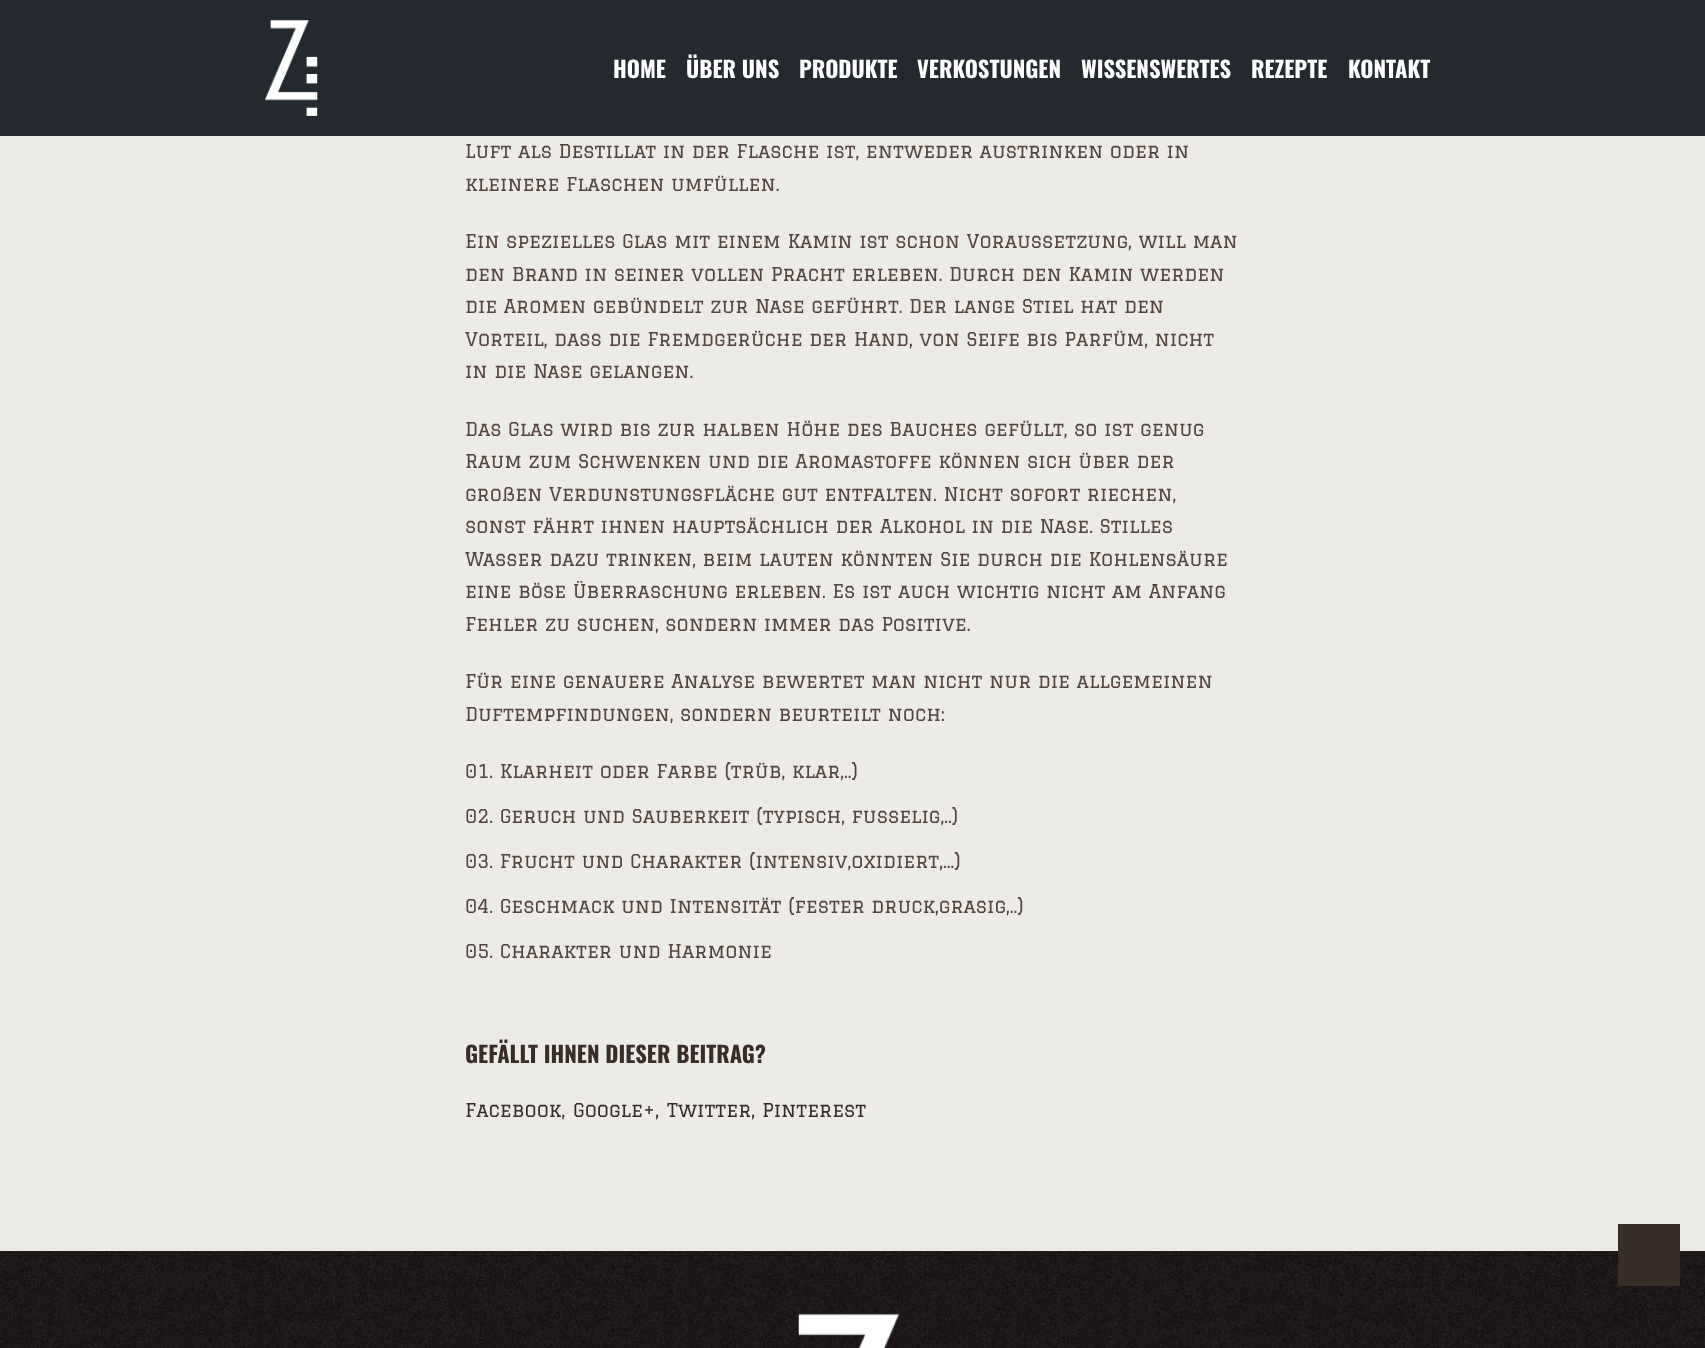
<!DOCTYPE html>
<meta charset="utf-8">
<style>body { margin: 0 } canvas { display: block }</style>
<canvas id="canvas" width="1705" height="1348"></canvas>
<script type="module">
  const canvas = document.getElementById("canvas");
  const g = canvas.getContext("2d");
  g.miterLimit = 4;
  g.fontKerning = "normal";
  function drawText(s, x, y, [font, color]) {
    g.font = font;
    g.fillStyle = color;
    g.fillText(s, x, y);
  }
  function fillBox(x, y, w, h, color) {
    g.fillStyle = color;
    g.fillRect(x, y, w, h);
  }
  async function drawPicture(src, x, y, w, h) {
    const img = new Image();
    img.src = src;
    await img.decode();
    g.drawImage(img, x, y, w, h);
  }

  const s1 = ["bold 22.5px Oswald", "#FFFFFF"];
  const s2 = ["18.75px Graduate", "#54453F"];
  const s3 = ["bold 22.5px Oswald", "#392D28"];
  const s4 = ["18.75px Graduate", "#392D28"];

  fillBox(0, 0, 1705, 1348, "#EDEBE7");
  fillBox(0, 0, 1705, 136, "#24292F");
  await drawPicture("pic1.png", 265, 20, 53, 96);
  drawText("HOME", 613, 78, s1);
  drawText("ÜBER UNS", 686, 78, s1);
  drawText("PRODUKTE", 799, 78, s1);
  drawText("VERKOSTUNGEN", 917, 78, s1);
  drawText("WISSENSWERTES", 1081, 78, s1);
  drawText("REZEPTE", 1251, 78, s1);
  drawText("KONTAKT", 1348, 78, s1);
  drawText("Luft als Destillat in der Flasche ist, entweder austrinken oder in", 465, 158, s2);
  drawText("kleinere Flaschen umfüllen.", 465, 191, s2);
  drawText("Ein spezielles Glas mit einem Kamin ist schon Voraussetzung, will man", 465, 248, s2);
  drawText("den Brand in seiner vollen Pracht erleben. Durch den Kamin werden", 465, 281, s2);
  drawText("die Aromen gebündelt zur Nase geführt. Der lange Stiel hat den", 465, 313, s2);
  drawText("Vorteil, dass die Fremdgerüche der Hand, von Seife bis Parfüm, nicht", 465, 346, s2);
  drawText("in die Nase gelangen.", 465, 378, s2);
  drawText("Das Glas wird bis zur halben Höhe des Bauches gefüllt, so ist genug", 465, 436, s2);
  drawText("Raum zum Schwenken und die Aromastoffe können sich über der", 465, 468, s2);
  drawText("großen Verdunstungsfläche gut entfalten. Nicht sofort riechen,", 465, 501, s2);
  drawText("sonst fährt ihnen hauptsächlich der Alkohol in die Nase. Stilles", 465, 533, s2);
  drawText("Wasser dazu trinken, beim lauten könnten Sie durch die Kohlensäure", 465, 566, s2);
  drawText("eine böse Überraschung erleben. Es ist auch wichtig nicht am Anfang", 465, 598, s2);
  drawText("Fehler zu suchen, sondern immer das Positive.", 465, 631, s2);
  drawText("Für eine genauere Analyse bewertet man nicht nur die allgemeinen", 465, 688, s2);
  drawText("Duftempfindungen, sondern beurteilt noch:", 465, 721, s2);
  drawText("01. Klarheit oder Farbe (trüb, klar,..)", 465, 778, s2);
  drawText("02. Geruch und Sauberkeit (typisch, fusselig,..)", 465, 823, s2);
  drawText("03. Frucht und Charakter (intensiv,oxidiert,…)", 465, 868, s2);
  drawText("04. Geschmack und Intensität (fester druck,grasig,..)", 465, 913, s2);
  drawText("05. Charakter und Harmonie", 465, 958, s2);
  drawText("GEFÄLLT IHNEN DIESER BEITRAG?", 465, 1063, s3);
  drawText("Facebook,", 465, 1117, s4);
  drawText("Google+,", 573, 1117, s4);
  drawText("Twitter,", 667, 1117, s4);
  drawText("Pinterest", 762, 1117, s4);
  fillBox(0, 1251, 1705, 1, "#24292F");
  await drawPicture("pic2.png", 0, 1251, 1705, 97);
  fillBox(1618, 1224, 62, 62, "#392D28");
  await drawPicture("pic3.png", 798, 1313, 101, 35);
</script>
